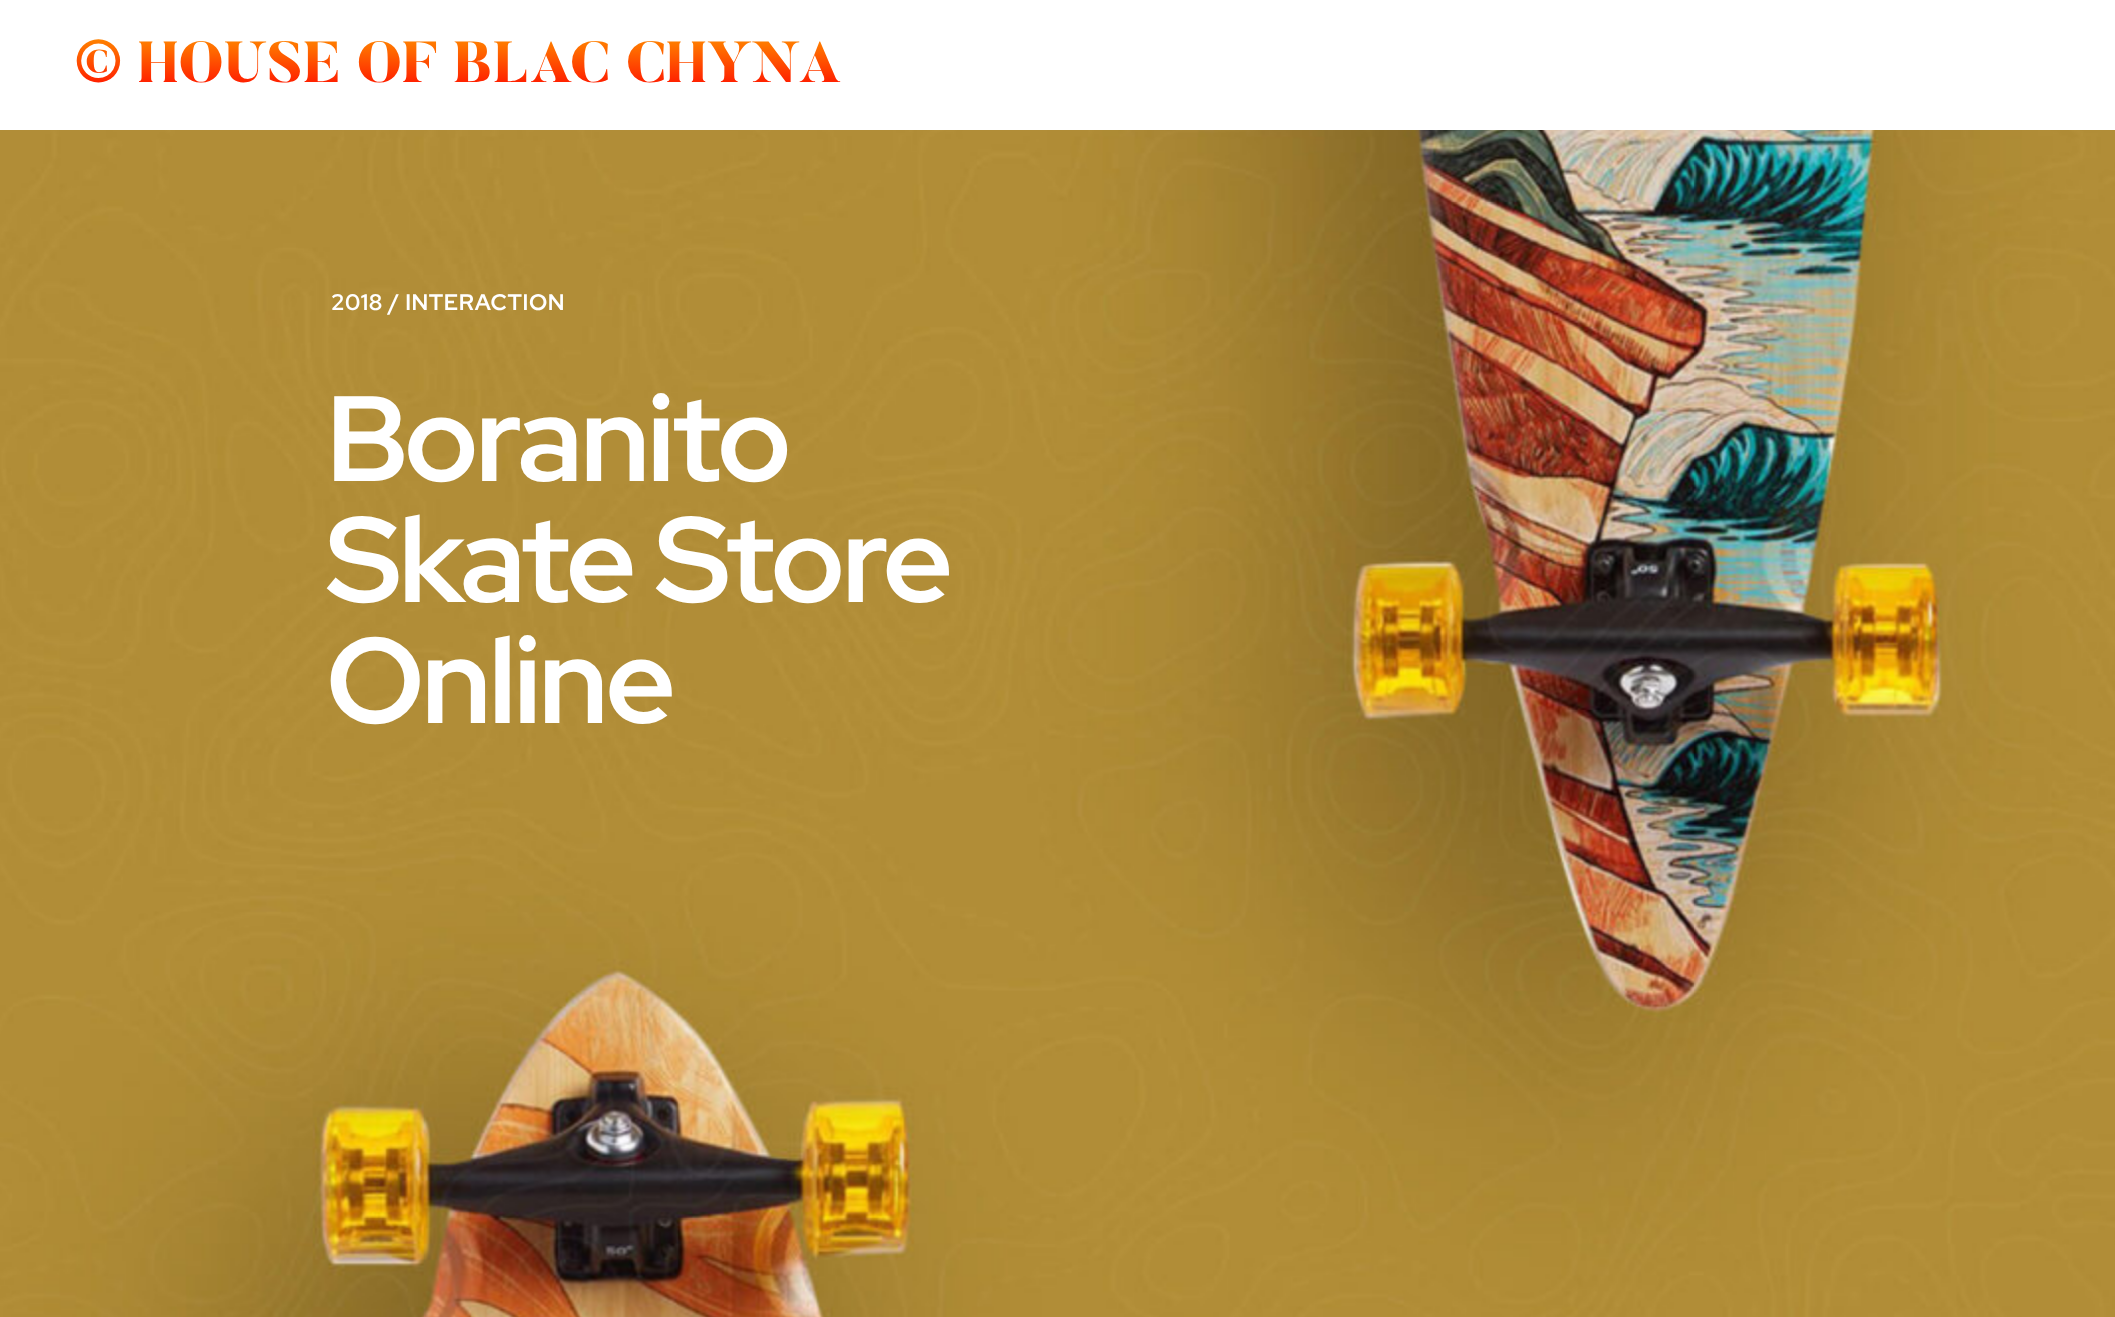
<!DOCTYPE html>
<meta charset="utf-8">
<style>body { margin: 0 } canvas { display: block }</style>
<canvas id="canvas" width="2115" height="1317"></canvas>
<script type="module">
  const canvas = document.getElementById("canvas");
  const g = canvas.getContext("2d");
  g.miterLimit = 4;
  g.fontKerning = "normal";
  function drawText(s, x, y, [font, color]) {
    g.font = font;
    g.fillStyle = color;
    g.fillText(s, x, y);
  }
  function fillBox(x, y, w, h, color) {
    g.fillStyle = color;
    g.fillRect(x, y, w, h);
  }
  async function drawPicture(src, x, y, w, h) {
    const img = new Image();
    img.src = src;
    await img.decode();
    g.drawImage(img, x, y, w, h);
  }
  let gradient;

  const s1 = ["bold 22.5px Red Hat Display", "#FFFFFF"];
  const s2 = ["bold 121.25px Red Hat Display", "#FFFFFF"];

  fillBox(0, 0, 2115, 1317, "#FFFFFF");
  g.font = "800 57.5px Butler";
  gradient = g.createLinearGradient(458, 33, 458, 97);
  gradient.addColorStop(0, "#FF9000");
  gradient.addColorStop(1, "#FF0000");
  g.fillStyle = gradient;
  g.fillText("© HOUSE OF BLAC CHYNA", 75, 82);
  await drawPicture("pic1.png", 0, 130, 2115, 1187);
  g.letterSpacing = "0.6px";
  drawText("2018 / INTERACTION", 331, 310, s1);
  g.letterSpacing = "-3px";
  drawText("Boranito", 326, 481, s2);
  drawText("Skate Store", 326, 602, s2);
  drawText("Online", 326, 723, s2);
</script>
